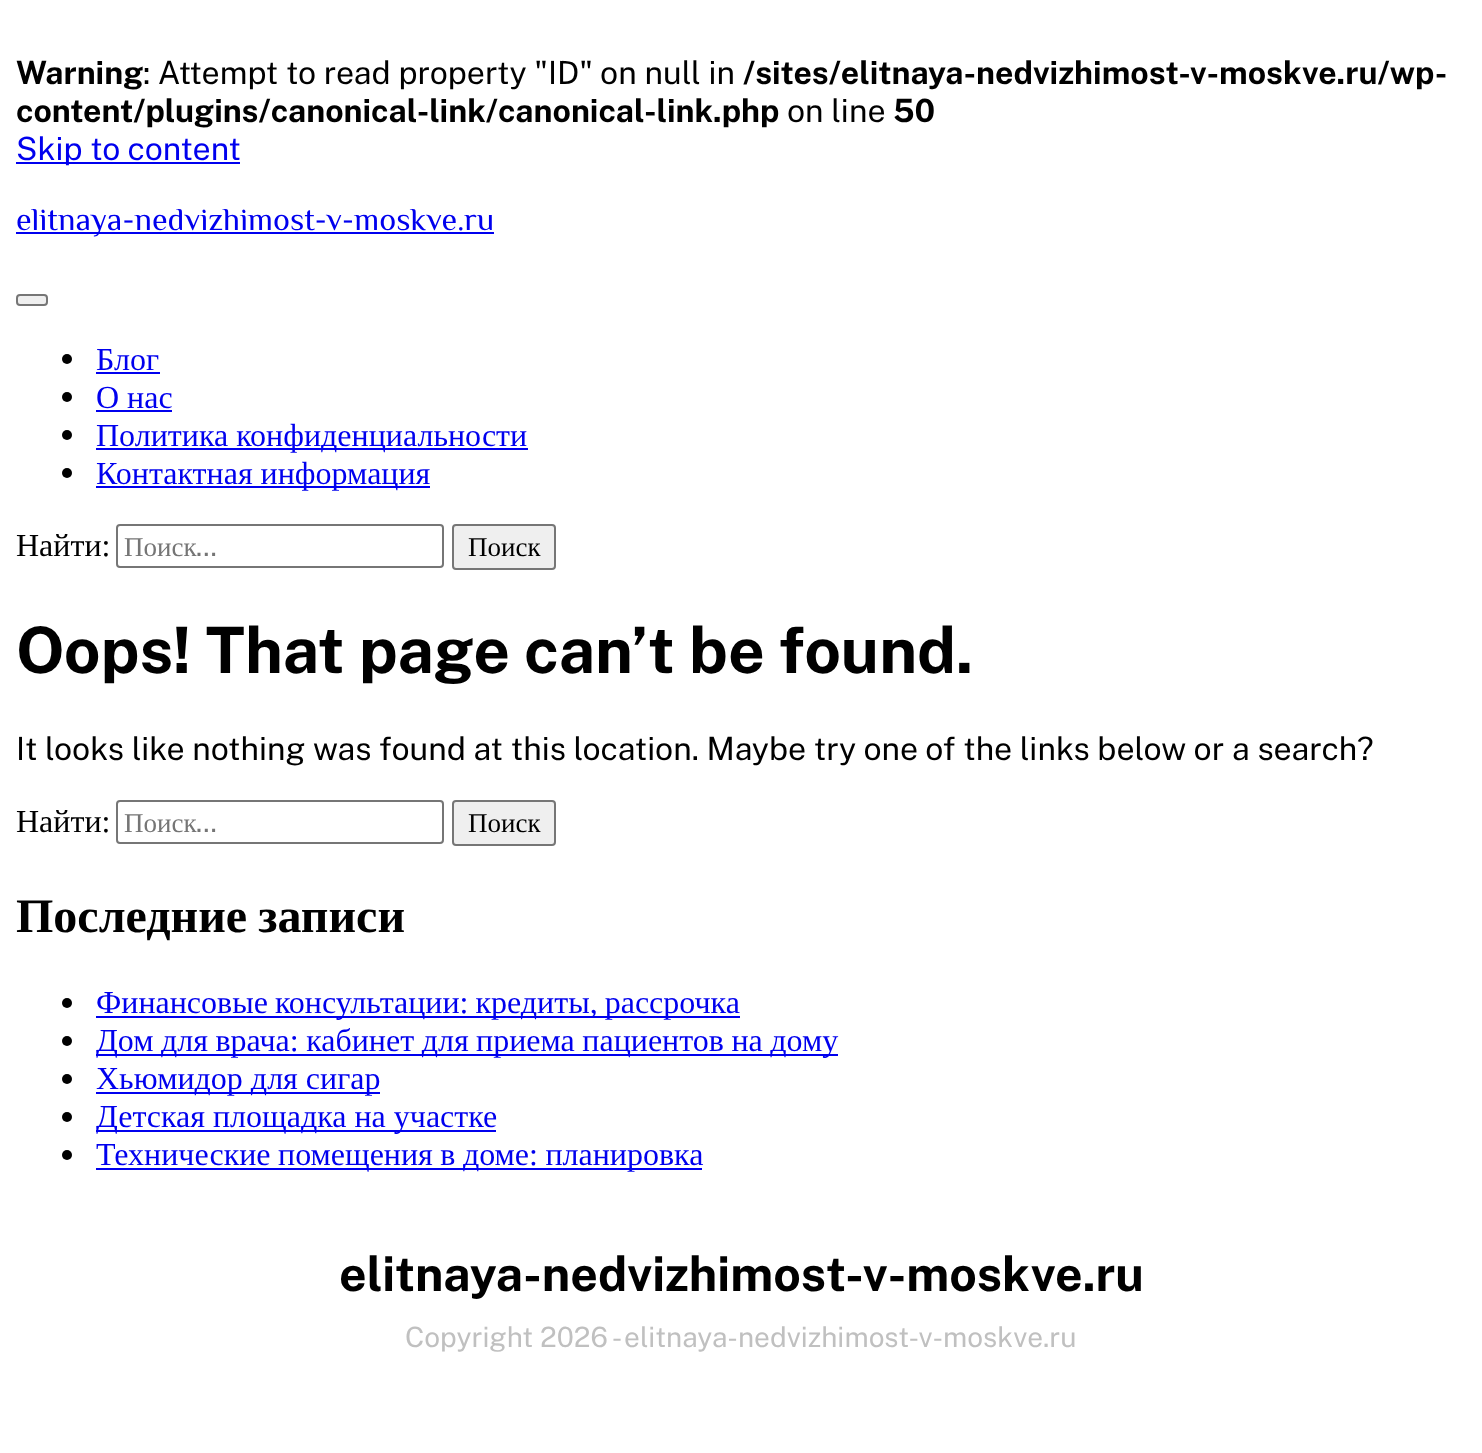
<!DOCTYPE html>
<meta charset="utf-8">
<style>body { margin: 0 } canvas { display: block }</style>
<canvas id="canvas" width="1482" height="1453"></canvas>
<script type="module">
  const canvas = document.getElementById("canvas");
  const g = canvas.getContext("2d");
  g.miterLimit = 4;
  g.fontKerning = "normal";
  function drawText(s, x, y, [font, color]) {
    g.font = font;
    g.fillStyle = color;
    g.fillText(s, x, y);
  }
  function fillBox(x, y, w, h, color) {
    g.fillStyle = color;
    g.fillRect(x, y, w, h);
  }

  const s1 = ["bold 32px Public Sans", "#000000"];
  const s2 = ["32px Public Sans", "#000000"];
  const s3 = ["32px Public Sans", "#0000EE"];
  const s4 = ["32px Philosopher", "#0000EE"];
  const s5 = ["32px Liberation Serif", "#0000EE"];
  const s6 = ["32px Liberation Serif", "#000000"];
  const s7 = ["27px Liberation Serif", "#757575"];
  const s8 = ["27px Public Sans", "#757575"];
  const s9 = ["27px Liberation Serif", "#000000"];
  const s10 = ["bold 64px Public Sans", "#000000"];
  const s11 = ["bold 48px Liberation Serif", "#000000"];
  const s12 = ["bold 48px Public Sans", "#000000"];
  const s13 = ["28px Public Sans", "#C0C0C0"];

  fillBox(0, 0, 1482, 1453, "#FFFFFF");
  drawText("Warning", 16, 84, s1);
  drawText(": Attempt to read property \"ID\" on null in", 143, 84, s2);
  drawText("/sites/elitnaya-nedvizhimost-v-moskve.ru/wp-", 743, 84, s1);
  drawText("content/plugins/canonical-link/canonical-link.php", 16, 122, s1);
  drawText("on line", 787, 122, s2);
  drawText("50", 893, 122, s1);
  fillBox(16, 162, 224, 2, "#0000EE");
  drawText("Skip to content", 16, 160, s3);
  fillBox(16, 232, 478, 2, "#0000EE");
  drawText("elitnaya-nedvizhimost-v-moskve.ru", 16, 230, s4);
  g.fillStyle = "#EFEFEF";
  g.beginPath();
  g.roundRect(17, 295, 30, 10, 3);
  g.fill();
  g.strokeStyle = "#767676";
  g.lineWidth = 2;
  g.stroke();
  g.fillStyle = "#000000";
  g.beginPath();
  g.arc(67, 359, 5, 0, Math.PI * 2);
  g.fill();
  drawText("Блог", 96, 370, s5);
  fillBox(96, 372, 64, 2, "#0000EE");
  g.fillStyle = "#000000";
  g.beginPath();
  g.arc(67, 397, 5, 0, Math.PI * 2);
  g.fill();
  drawText("О нас", 96, 408, s5);
  fillBox(96, 410, 76, 2, "#0000EE");
  g.fillStyle = "#000000";
  g.beginPath();
  g.arc(67, 435, 5, 0, Math.PI * 2);
  g.fill();
  fillBox(96, 448, 432, 2, "#0000EE");
  drawText("Политика конфиденциальности", 96, 446, s5);
  g.fillStyle = "#000000";
  g.beginPath();
  g.arc(67, 473, 5, 0, Math.PI * 2);
  g.fill();
  fillBox(96, 486, 334, 2, "#0000EE");
  drawText("Контактная информация", 96, 484, s5);
  drawText("Найти:", 16, 556, s6);
  g.beginPath();
  g.roundRect(117, 525, 326, 42, 3);
  g.stroke();
  drawText("Поиск", 124, 556, s7);
  drawText("…", 196, 556, s8);
  g.fillStyle = "#EFEFEF";
  g.beginPath();
  g.roundRect(453, 525, 102, 44, 3);
  g.fill();
  g.stroke();
  drawText("Поиск", 468, 556, s9);
  drawText("Oops! That page can’t be found.", 16, 673, s10);
  drawText("It looks like nothing was found at this location. Maybe try one of the links below or a search?", 16, 760, s2);
  drawText("Найти:", 16, 832, s6);
  g.beginPath();
  g.roundRect(117, 801, 326, 42, 3);
  g.stroke();
  drawText("Поиск", 124, 832, s7);
  drawText("…", 196, 832, s8);
  g.fillStyle = "#EFEFEF";
  g.beginPath();
  g.roundRect(453, 801, 102, 44, 3);
  g.fill();
  g.stroke();
  drawText("Поиск", 468, 832, s9);
  g.wordSpacing = "-1px";
  drawText("Последние записи", 16, 932, s11);
  g.beginPath();
  g.arc(67, 1003, 5, 0, Math.PI * 2);
  g.fill();
  fillBox(96, 1016, 644, 2, "#0000EE");
  drawText("Финансовые консультации: кредиты, рассрочка", 96, 1013, s5);
  g.fillStyle = "#000000";
  g.beginPath();
  g.arc(67, 1041, 5, 0, Math.PI * 2);
  g.fill();
  fillBox(96, 1054, 742, 2, "#0000EE");
  g.wordSpacing = "-0.5px";
  drawText("Дом для врача: кабинет для приема пациентов на дому", 96, 1051, s5);
  g.fillStyle = "#000000";
  g.beginPath();
  g.arc(67, 1079, 5, 0, Math.PI * 2);
  g.fill();
  fillBox(96, 1092, 284, 2, "#0000EE");
  g.wordSpacing = "0px";
  drawText("Хьюмидор для сигар", 96, 1089, s5);
  g.fillStyle = "#000000";
  g.beginPath();
  g.arc(67, 1117, 5, 0, Math.PI * 2);
  g.fill();
  fillBox(96, 1130, 400, 2, "#0000EE");
  drawText("Детская площадка на участке", 96, 1127, s5);
  g.fillStyle = "#000000";
  g.beginPath();
  g.arc(67, 1155, 5, 0, Math.PI * 2);
  g.fill();
  fillBox(96, 1168, 606, 2, "#0000EE");
  g.wordSpacing = "-0.5px";
  drawText("Технические помещения в доме: планировка", 96, 1165, s5);
  g.wordSpacing = "0px";
  drawText("elitnaya-nedvizhimost-v-moskve.ru", 339, 1291, s12);
  drawText("Copyright 2026 - elitnaya-nedvizhimost-v-moskve.ru", 405, 1347, s13);
</script>
